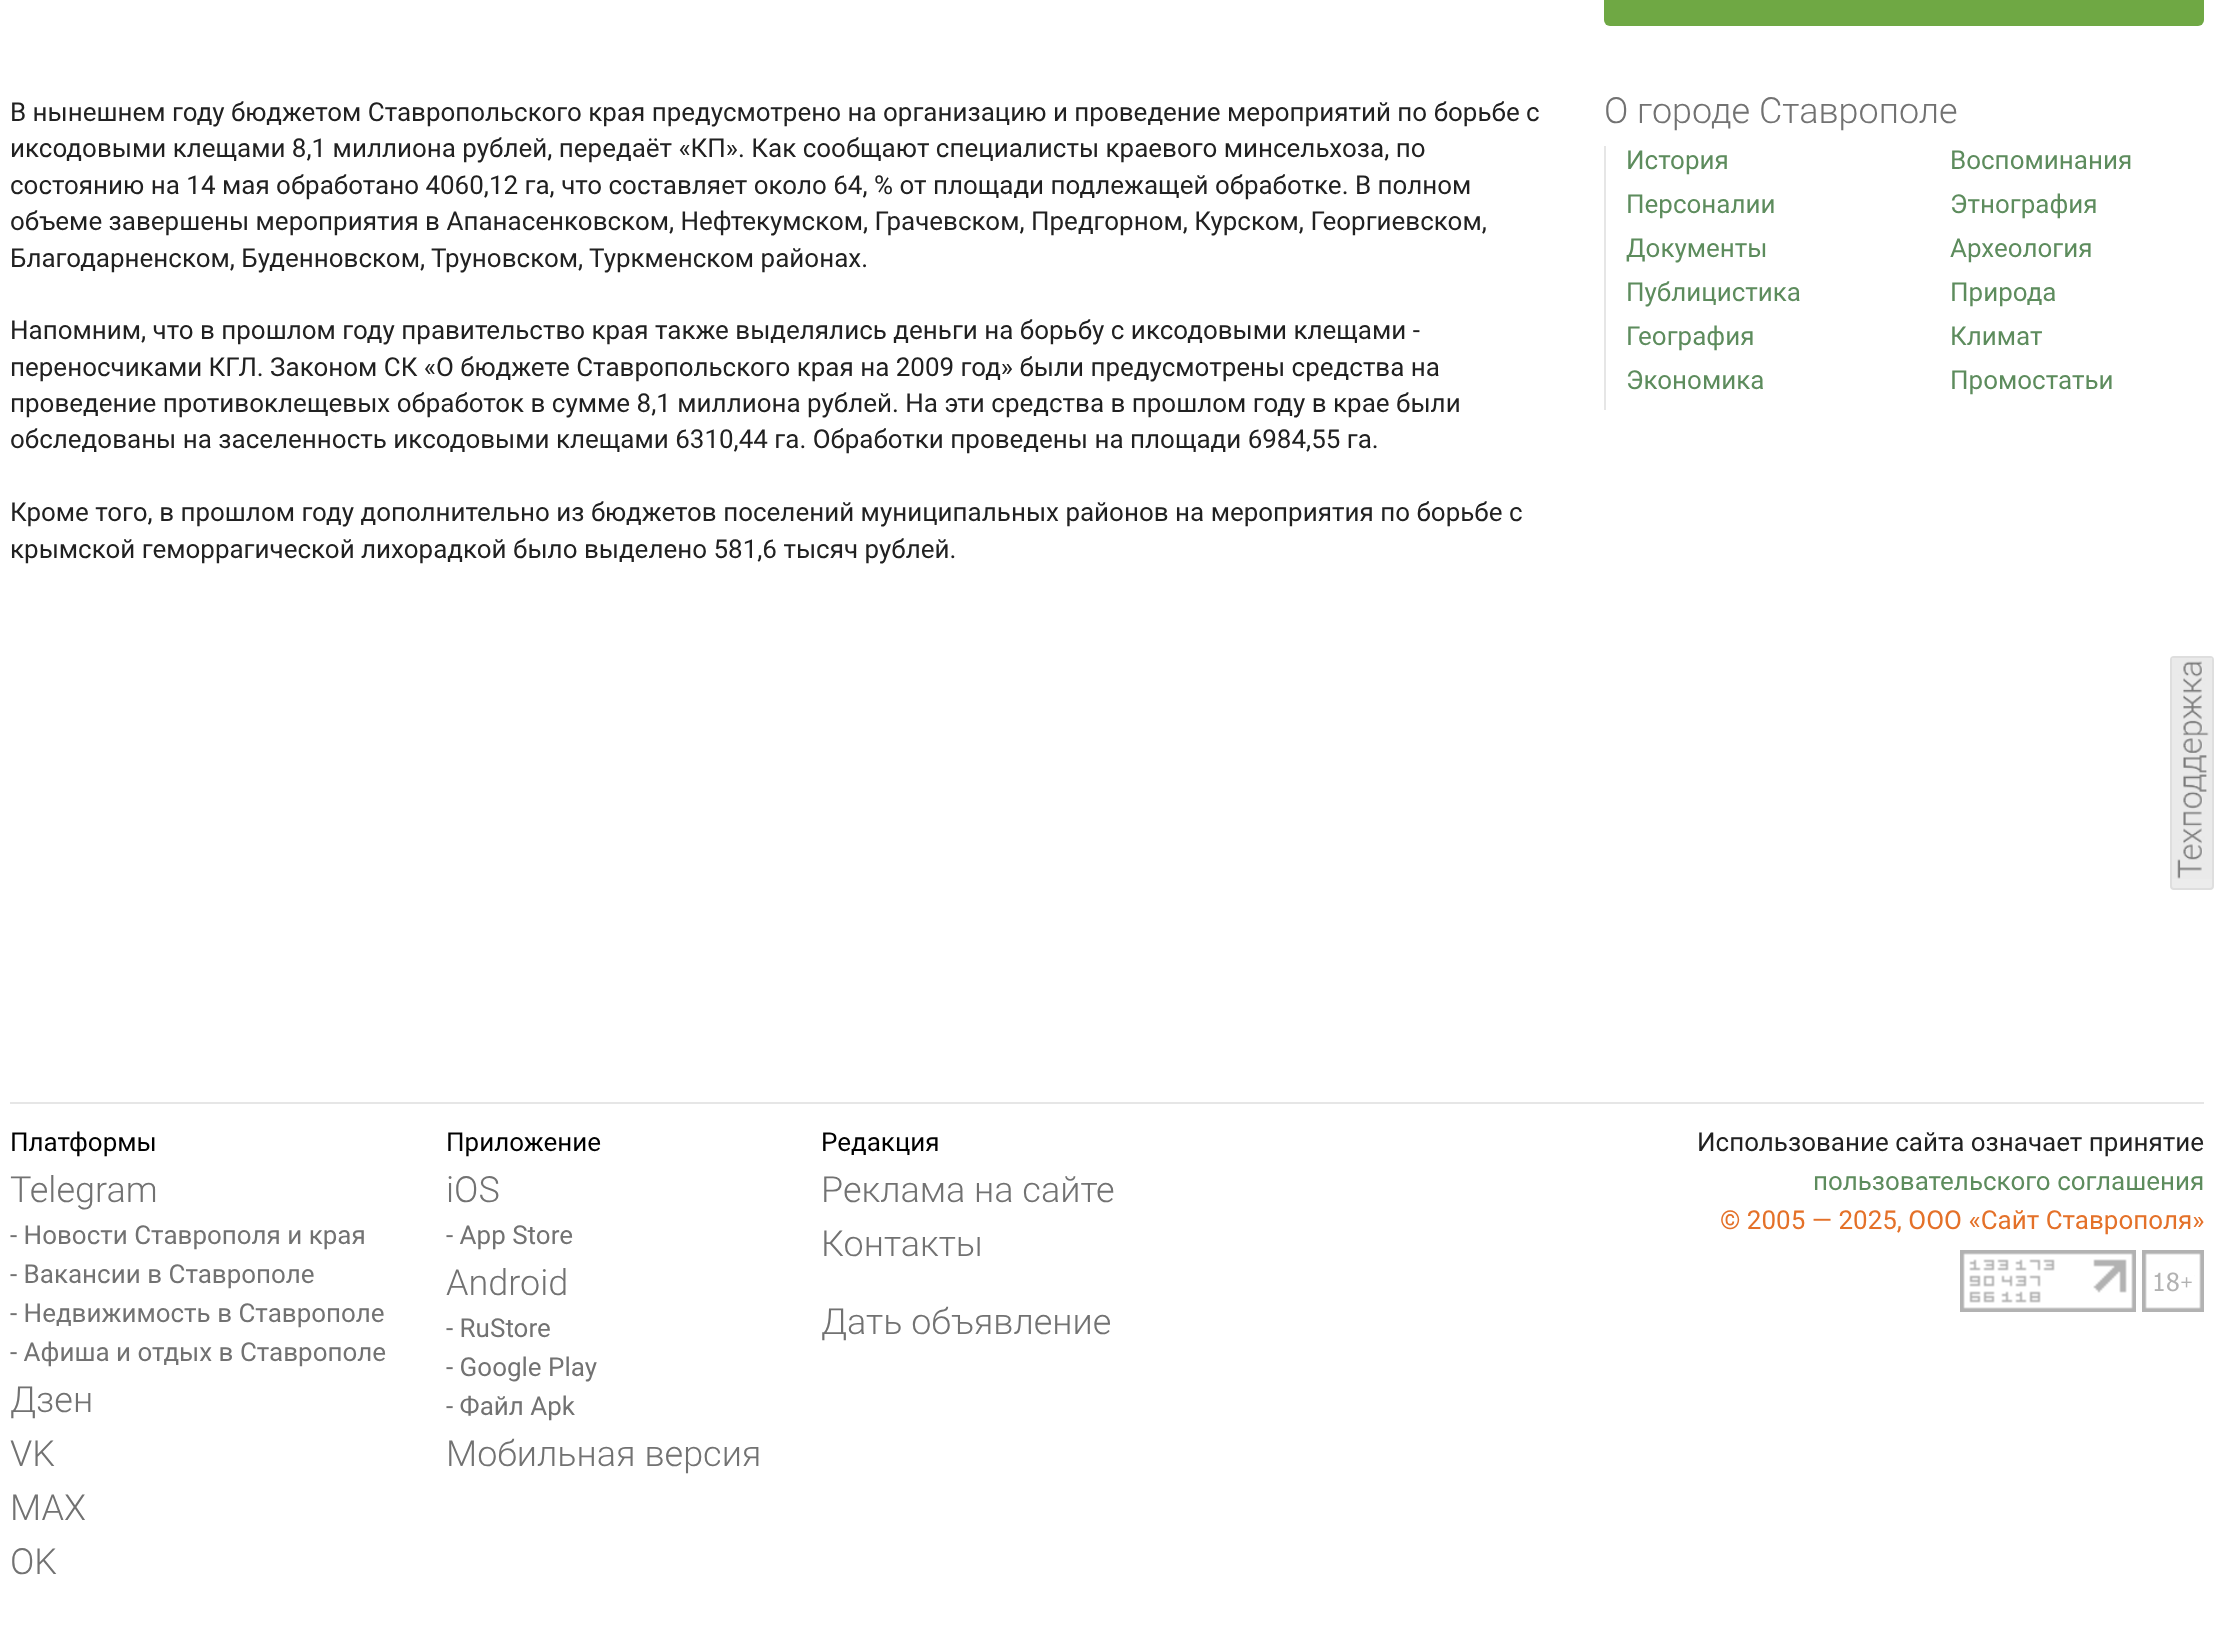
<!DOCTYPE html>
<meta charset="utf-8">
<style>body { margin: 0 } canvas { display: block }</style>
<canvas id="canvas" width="2214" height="1642"></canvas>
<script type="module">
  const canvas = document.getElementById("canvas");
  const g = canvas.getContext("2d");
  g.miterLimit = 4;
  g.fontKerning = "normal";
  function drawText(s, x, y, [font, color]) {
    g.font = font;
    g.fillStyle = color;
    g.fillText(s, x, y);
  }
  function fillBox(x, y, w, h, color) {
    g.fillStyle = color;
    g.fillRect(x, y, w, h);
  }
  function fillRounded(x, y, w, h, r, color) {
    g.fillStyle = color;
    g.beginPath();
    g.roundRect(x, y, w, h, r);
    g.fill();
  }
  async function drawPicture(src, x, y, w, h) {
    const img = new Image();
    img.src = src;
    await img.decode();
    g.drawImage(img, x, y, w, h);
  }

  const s1 = ["26px Roboto", "#212121"];
  const s2 = ["300 36px Roboto", "#727272"];
  const s3 = ["26px Roboto", "#5D8C5D"];
  const s4 = ["26px Roboto", "#000000"];
  const s5 = ["26px Roboto", "#727272"];
  const s6 = ["26px Roboto", "#E47129"];

  fillBox(0, 0, 2214, 1642, "#FFFFFF");
  fillRounded(1604, -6, 600, 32, 6, "#6FA844");
  drawText("В нынешнем году бюджетом Ставропольского края предусмотрено на организацию и проведение мероприятий по борьбе с", 10, 121, s1);
  drawText("иксодовыми клещами 8,1 миллиона рублей, передаёт «КП». Как сообщают специалисты краевого минсельхоза, по", 10, 157, s1);
  drawText("состоянию на 14 мая обработано 4060,12 га, что составляет около 64, % от площади подлежащей обработке. В полном", 10, 194, s1);
  drawText("объеме завершены мероприятия в Апанасенковском, Нефтекумском, Грачевском, Предгорном, Курском, Георгиевском,", 10, 230, s1);
  drawText("Благодарненском, Буденновском, Труновском, Туркменском районах.", 10, 267, s1);
  drawText("Напомним, что в прошлом году правительство края также выделялись деньги на борьбу с иксодовыми клещами -", 10, 339, s1);
  drawText("переносчиками КГЛ. Законом СК «О бюджете Ставропольского края на 2009 год» были предусмотрены средства на", 10, 376, s1);
  drawText("проведение противоклещевых обработок в сумме 8,1 миллиона рублей. На эти средства в прошлом году в крае были", 10, 412, s1);
  drawText("обследованы на заселенность иксодовыми клещами 6310,44 га. Обработки проведены на площади 6984,55 га.", 10, 448, s1);
  drawText("Кроме того, в прошлом году дополнительно из бюджетов поселений муниципальных районов на мероприятия по борьбе с", 10, 521, s1);
  drawText("крымской геморрагической лихорадкой было выделено 581,6 тысяч рублей.", 10, 558, s1);
  drawText("О городе Ставрополе", 1604, 123, s2);
  fillBox(1604, 146, 2, 264, "#E6E6E6");
  drawText("История", 1626, 169, s3);
  drawText("Воспоминания", 1950, 169, s3);
  drawText("Персоналии", 1626, 213, s3);
  drawText("Этнография", 1950, 213, s3);
  drawText("Документы", 1626, 257, s3);
  drawText("Археология", 1950, 257, s3);
  drawText("Публицистика", 1626, 301, s3);
  drawText("Природа", 1950, 301, s3);
  drawText("География", 1626, 345, s3);
  drawText("Климат", 1950, 345, s3);
  drawText("Экономика", 1626, 389, s3);
  drawText("Промостатьи", 1950, 389, s3);
  g.fillStyle = "#ECECEC";
  g.beginPath();
  g.roundRect(2171, 657, 42, 232, 3);
  g.fill();
  g.strokeStyle = "#DEDEDE";
  g.lineWidth = 2;
  g.stroke();
  await drawPicture("pic1.png", 2172, 658, 40, 221);
  fillBox(10, 1102, 2194, 2, "#E6E6E6");
  drawText("Платформы", 10, 1151, s4);
  drawText("Telegram", 10, 1202, s2);
  drawText("- Новости Ставрополя и края", 10, 1244, s5);
  drawText("- Вакансии в Ставрополе", 10, 1283, s5);
  drawText("- Недвижимость в Ставрополе", 10, 1322, s5);
  drawText("- Афиша и отдых в Ставрополе", 10, 1361, s5);
  drawText("Дзен", 10, 1412, s2);
  drawText("VK", 10, 1466, s2);
  drawText("MAX", 10, 1520, s2);
  drawText("OK", 10, 1574, s2);
  drawText("Приложение", 446, 1151, s4);
  drawText("iOS", 446, 1202, s2);
  drawText("- App Store", 446, 1244, s5);
  drawText("Android", 446, 1295, s2);
  drawText("- RuStore", 446, 1337, s5);
  drawText("- Google Play", 446, 1376, s5);
  drawText("- Файл Apk", 446, 1415, s5);
  drawText("Мобильная версия", 446, 1466, s2);
  drawText("Редакция", 821, 1151, s4);
  drawText("Реклама на сайте", 821, 1202, s2);
  drawText("Контакты", 821, 1256, s2);
  drawText("Дать объявление", 821, 1334, s2);
  drawText("Использование сайта означает принятие", 1697, 1151, s1);
  drawText("пользовательского соглашения", 1813, 1190, s3);
  drawText("© 2005 — 2025, ООО «Сайт Ставрополя»", 1720, 1229, s6);
  await drawPicture("pic2.png", 1960, 1250, 176, 62);
  await drawPicture("pic3.png", 2142, 1250, 62, 62);
</script>
